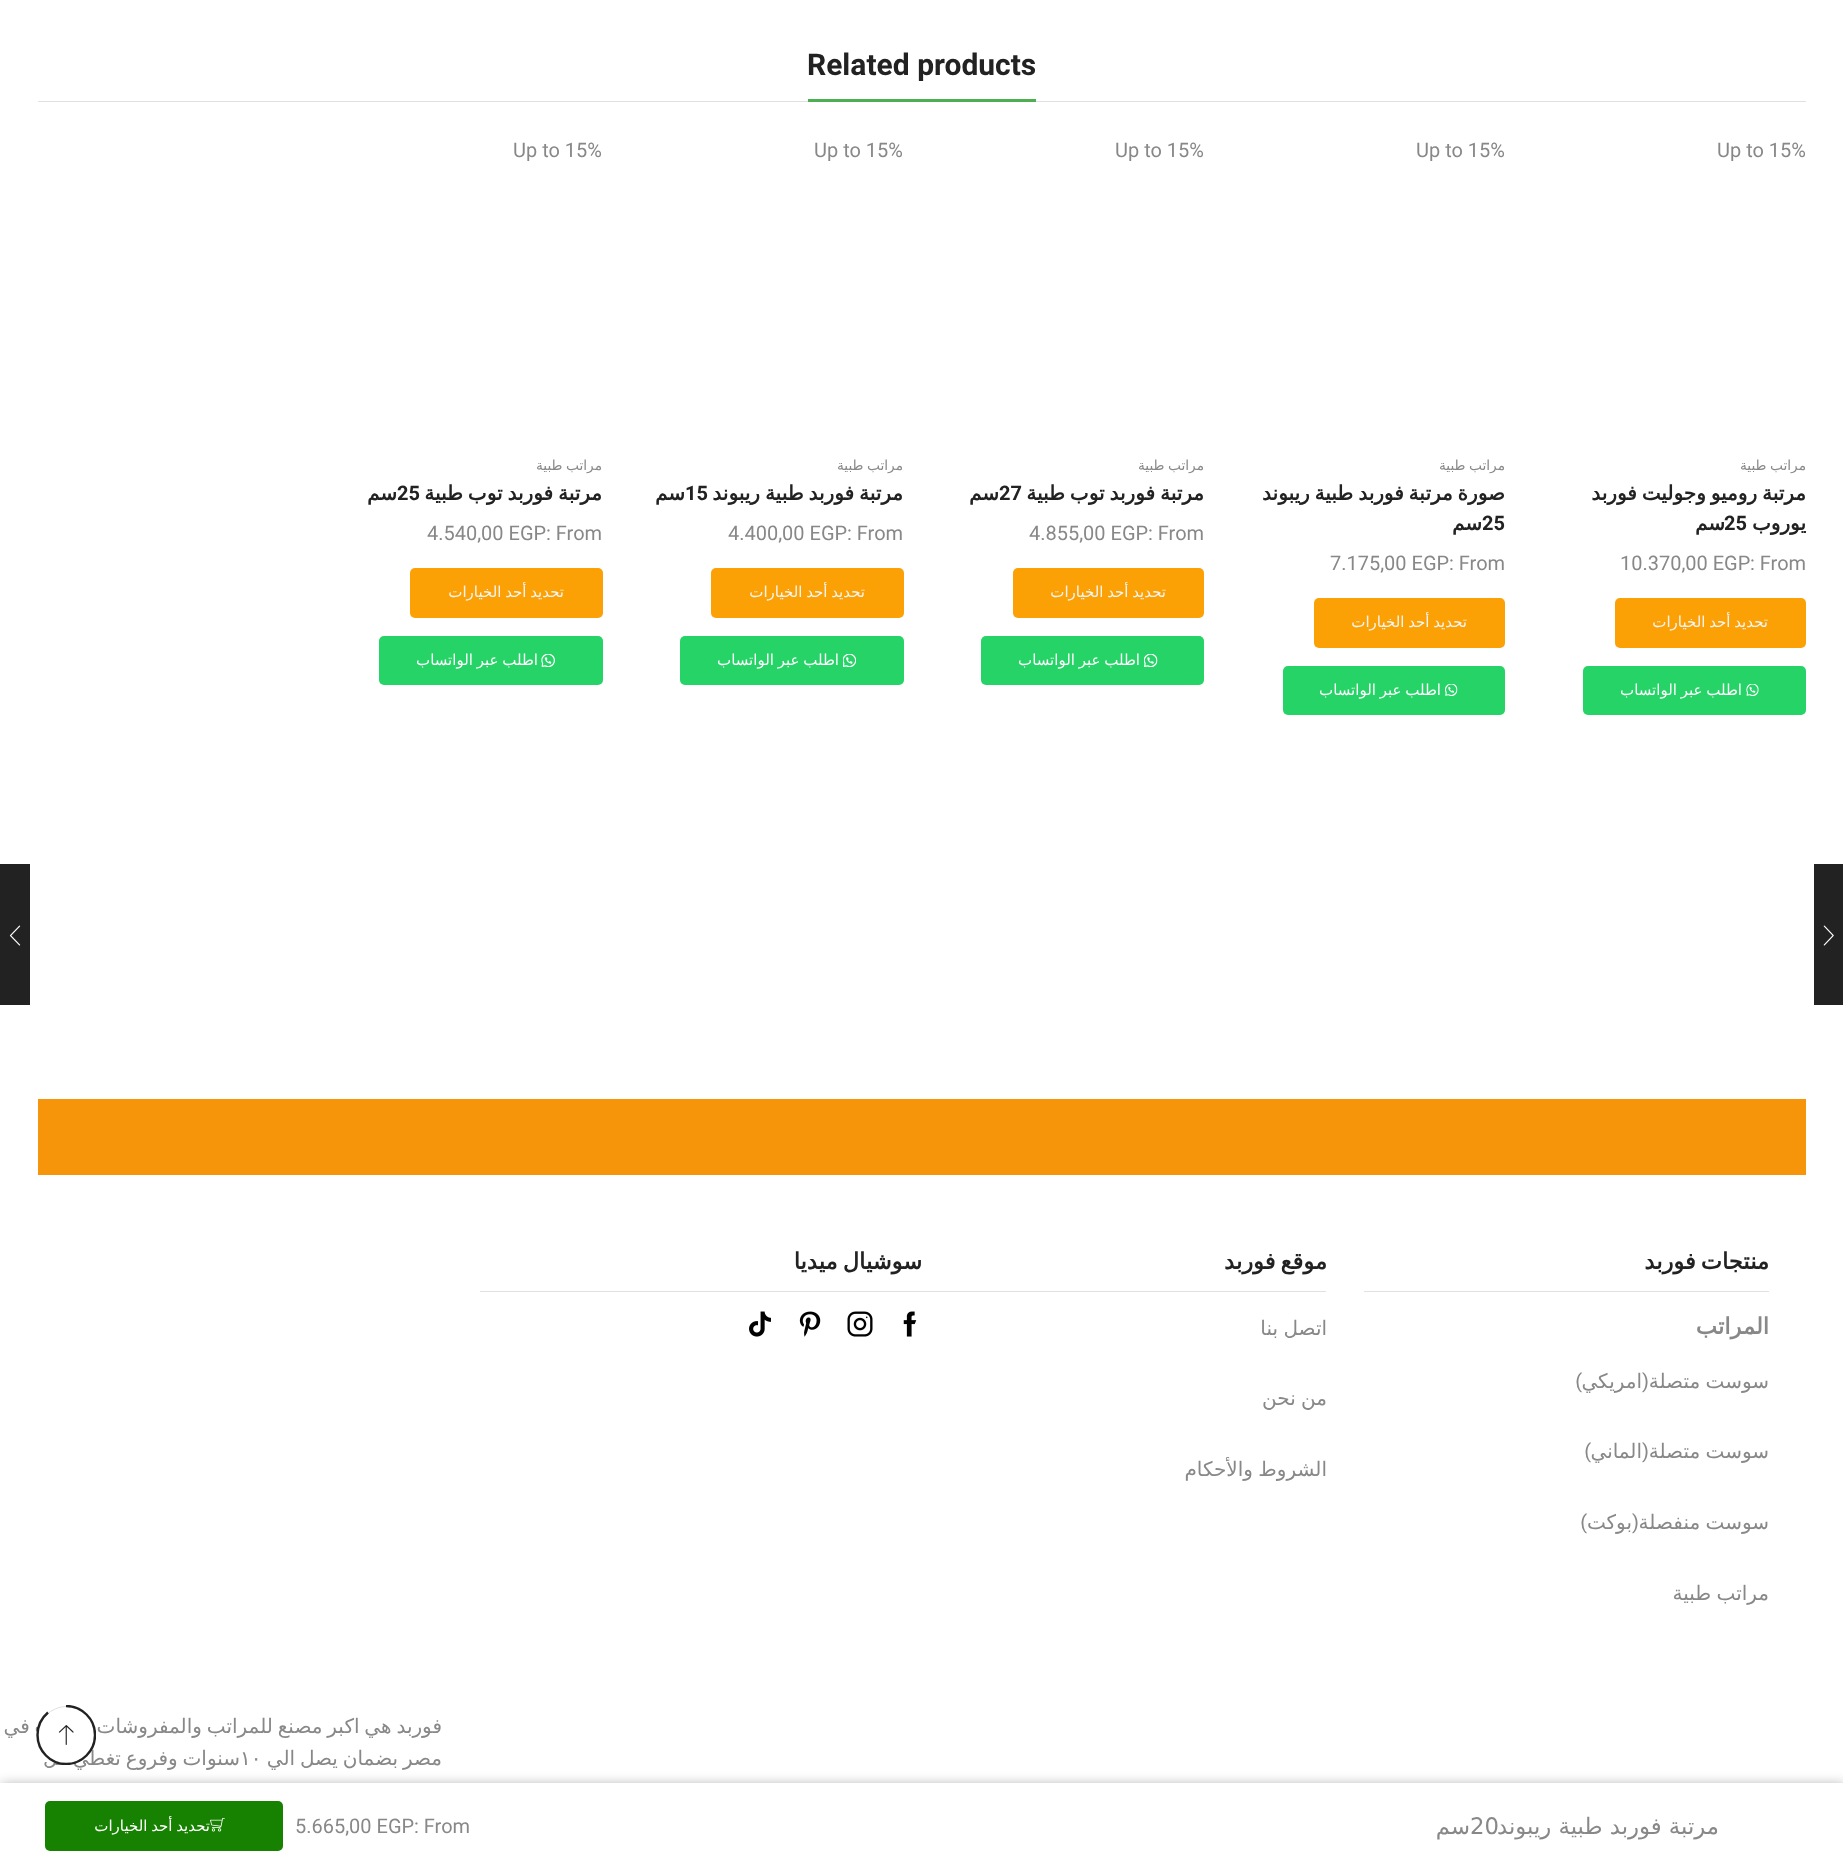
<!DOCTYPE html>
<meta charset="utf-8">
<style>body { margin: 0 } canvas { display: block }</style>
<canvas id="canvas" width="1843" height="1870"></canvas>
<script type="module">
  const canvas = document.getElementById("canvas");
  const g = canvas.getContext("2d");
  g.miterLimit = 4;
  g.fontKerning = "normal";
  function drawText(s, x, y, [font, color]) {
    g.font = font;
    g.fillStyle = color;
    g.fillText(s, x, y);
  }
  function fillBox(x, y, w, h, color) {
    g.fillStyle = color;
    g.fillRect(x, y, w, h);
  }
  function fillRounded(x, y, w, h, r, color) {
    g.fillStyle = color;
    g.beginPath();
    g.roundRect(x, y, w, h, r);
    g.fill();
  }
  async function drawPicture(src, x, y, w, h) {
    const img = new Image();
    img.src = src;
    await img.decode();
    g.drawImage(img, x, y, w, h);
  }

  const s1 = ["bold 30px Roboto", "#222222"];
  const s2 = ["20px Roboto", "#888888"];
  const s3 = ["13.75px DejaVu Sans", "#888888"];
  const s4 = ["bold 20px DejaVu Sans", "#222222"];
  const s5 = ["bold 20px Roboto", "#222222"];
  const s6 = ["15px DejaVu Sans", "#F4F4F4"];
  const s7 = ["15px DejaVu Sans", "#FFFFFF"];
  const s8 = ["bold 22.5px DejaVu Sans", "#222222"];
  const s9 = ["bold 22.5px DejaVu Sans", "#888888"];
  const s10 = ["20px DejaVu Sans", "#888888"];
  const s11 = ["22.75px DejaVu Sans", "#888888"];

  fillBox(0, 0, 1843, 1870, "#FFFFFF");
  fillBox(38, 101, 1768, 1, "#E1E1E1");
  drawText("Related products", 807, 75, s1);
  fillBox(808, 99, 228, 3, "#4CAF50");
  drawText("Up to 15%", 1717, 157, s2);
  g.wordSpacing = "-1px";
  g.direction = "rtl";
  drawText("مراتب طبية", 1806, 470, s3);
  g.wordSpacing = "-1.5px";
  drawText("مرتبة روميو وجوليت فوربد", 1806, 500, s4);
  g.wordSpacing = "0px";
  drawText("يوروب", 1806, 530, s4);
  g.direction = "ltr";
  drawText("25", 1724, 530, s5);
  g.direction = "rtl";
  drawText("سم", 1725, 530, s4);
  g.direction = "ltr";
  drawText(": From", 1750, 570, s2);
  drawText("10.370,00 EGP", 1620, 570, s2);
  fillRounded(1615, 598, 191, 50, 5, "#FCA105");
  g.wordSpacing = "-1px";
  g.direction = "rtl";
  drawText("تحديد أحد الخيارات", 1768, 627, s6);
  fillRounded(1583, 666, 223, 49, 5, "#25D366");
  await drawPicture("pic1.png", 1746, 684, 13, 12);
  drawText("اطلب عبر الواتساب", 1742, 695, s7);
  g.wordSpacing = "0px";
  g.direction = "ltr";
  drawText("Up to 15%", 1416, 157, s2);
  g.wordSpacing = "-1px";
  g.direction = "rtl";
  drawText("مراتب طبية", 1505, 470, s3);
  g.wordSpacing = "-1.5px";
  drawText("صورة مرتبة فوربد طبية ريبوند", 1505, 500, s4);
  g.wordSpacing = "0px";
  g.direction = "ltr";
  drawText("25", 1482, 530, s5);
  g.direction = "rtl";
  drawText("سم", 1482, 530, s4);
  g.direction = "ltr";
  drawText(": From", 1449, 570, s2);
  drawText("7.175,00 EGP", 1330, 570, s2);
  fillRounded(1314, 598, 191, 50, 5, "#FCA105");
  g.wordSpacing = "-1px";
  g.direction = "rtl";
  drawText("تحديد أحد الخيارات", 1467, 627, s6);
  fillRounded(1283, 666, 222, 49, 5, "#25D366");
  await drawPicture("pic2.png", 1445, 684, 13, 12);
  drawText("اطلب عبر الواتساب", 1441, 695, s7);
  g.wordSpacing = "0px";
  g.direction = "ltr";
  drawText("Up to 15%", 1115, 157, s2);
  g.wordSpacing = "-1px";
  g.direction = "rtl";
  drawText("مراتب طبية", 1204, 470, s3);
  g.wordSpacing = "-1.5px";
  drawText("مرتبة فوربد توب طبية", 1204, 500, s4);
  g.wordSpacing = "0px";
  g.direction = "ltr";
  drawText("27", 999, 500, s5);
  g.direction = "rtl";
  drawText("سم", 999, 500, s4);
  g.direction = "ltr";
  drawText(": From", 1148, 540, s2);
  drawText("4.855,00 EGP", 1029, 540, s2);
  fillRounded(1013, 568, 191, 50, 5, "#FCA105");
  g.wordSpacing = "-1px";
  g.direction = "rtl";
  drawText("تحديد أحد الخيارات", 1166, 597, s6);
  fillRounded(981, 636, 223, 49, 5, "#25D366");
  await drawPicture("pic3.png", 1144, 654, 14, 13);
  drawText("اطلب عبر الواتساب", 1140, 665, s7);
  g.wordSpacing = "0px";
  g.direction = "ltr";
  drawText("Up to 15%", 814, 157, s2);
  g.wordSpacing = "-1px";
  g.direction = "rtl";
  drawText("مراتب طبية", 903, 470, s3);
  g.wordSpacing = "-1.5px";
  drawText("مرتبة فوربد طبية ريبوند", 903, 500, s4);
  g.wordSpacing = "0px";
  g.direction = "ltr";
  drawText("15", 685, 500, s5);
  g.direction = "rtl";
  drawText("سم", 685, 500, s4);
  g.direction = "ltr";
  drawText(": From", 847, 540, s2);
  drawText("4.400,00 EGP", 728, 540, s2);
  fillRounded(711, 568, 193, 50, 5, "#FCA105");
  g.wordSpacing = "-1px";
  g.direction = "rtl";
  drawText("تحديد أحد الخيارات", 865, 597, s6);
  fillRounded(680, 636, 224, 49, 5, "#25D366");
  await drawPicture("pic4.png", 843, 654, 13, 13);
  drawText("اطلب عبر الواتساب", 839, 665, s7);
  g.wordSpacing = "0px";
  g.direction = "ltr";
  drawText("Up to 15%", 513, 157, s2);
  g.wordSpacing = "-1px";
  g.direction = "rtl";
  drawText("مراتب طبية", 602, 470, s3);
  g.wordSpacing = "-1.5px";
  drawText("مرتبة فوربد توب طبية", 602, 500, s4);
  g.wordSpacing = "0px";
  g.direction = "ltr";
  drawText("25", 397, 500, s5);
  g.direction = "rtl";
  drawText("سم", 397, 500, s4);
  g.direction = "ltr";
  drawText(": From", 546, 540, s2);
  drawText("4.540,00 EGP", 427, 540, s2);
  fillRounded(410, 568, 193, 50, 5, "#FCA105");
  g.wordSpacing = "-1px";
  g.direction = "rtl";
  drawText("تحديد أحد الخيارات", 564, 597, s6);
  fillRounded(379, 636, 224, 49, 5, "#25D366");
  await drawPicture("pic5.png", 541, 654, 14, 13);
  drawText("اطلب عبر الواتساب", 538, 665, s7);
  fillBox(1814, 864, 29, 141, "#222222");
  await drawPicture("pic6.png", 1823, 925, 11, 21);
  fillBox(0, 864, 30, 141, "#222222");
  await drawPicture("pic7.png", 9, 925, 12, 21);
  fillBox(38, 1099, 1768, 76, "#F7950A");
  fillBox(1364, 1291, 405, 1, "#E1E1E1");
  g.wordSpacing = "-2px";
  drawText("منتجات فوربد", 1769, 1269, s8);
  g.wordSpacing = "0px";
  drawText("المراتب", 1769, 1334, s9);
  g.wordSpacing = "-1px";
  drawText("سوست متصلة", 1769, 1388, s10);
  g.wordSpacing = "0px";
  drawText("(", 1649, 1388, s2);
  drawText("امريكي", 1642, 1388, s10);
  drawText(")", 1582, 1388, s2);
  g.wordSpacing = "-1px";
  drawText("سوست متصلة", 1769, 1458, s10);
  g.wordSpacing = "0px";
  drawText("(", 1649, 1458, s2);
  drawText("الماني", 1642, 1458, s10);
  drawText(")", 1591, 1458, s2);
  g.wordSpacing = "-1px";
  drawText("سوست منفصلة", 1769, 1529, s10);
  g.wordSpacing = "0px";
  drawText("(", 1639, 1529, s2);
  drawText("بوكت", 1632, 1529, s10);
  drawText(")", 1587, 1529, s2);
  g.wordSpacing = "-1px";
  drawText("مراتب طبية", 1769, 1600, s10);
  fillBox(480, 1291, 846, 1, "#E1E1E1");
  g.wordSpacing = "-2px";
  drawText("موقع فوربد", 1327, 1269, s8);
  g.wordSpacing = "-1px";
  drawText("اتصل بنا", 1327, 1335, s10);
  drawText("من نحن", 1327, 1405, s10);
  drawText("الشروط والأحكام", 1327, 1476, s10);
  g.wordSpacing = "-2px";
  drawText("سوشيال ميديا", 922, 1269, s8);
  await drawPicture("pic8.png", 903, 1311, 14, 26);
  await drawPicture("pic9.png", 847, 1311, 26, 26);
  await drawPicture("pic10.png", 799, 1311, 22, 26);
  await drawPicture("pic11.png", 749, 1311, 22, 26);
  g.wordSpacing = "-1.5px";
  drawText("فوربد هي اكبر مصنع للمراتب والمفروشات والاثاث في", 442, 1733, s10);
  drawText("مصر بضمان يصل الي", 442, 1765, s10);
  g.wordSpacing = "0px";
  g.direction = "ltr";
  drawText("١٠", 240, 1765, s10);
  g.wordSpacing = "-1.5px";
  g.direction = "rtl";
  drawText("سنوات وفروع تغطي كل", 240, 1765, s10);
  g.fillStyle = "#FFFFFF";
  g.beginPath();
  g.roundRect(38.5, 1706.5, 56, 57, 28);
  g.fill();
  g.strokeStyle = "#E1E1E1";
  g.stroke();
  g.save();
  g.beginPath();
  g.rect(36, 1705, 60, 60);
  g.clip();
  g.beginPath();
  g.moveTo(66, 1706);
  g.bezierCurveTo(82, 1706, 95, 1719, 95, 1735);
  g.bezierCurveTo(95, 1751, 82, 1764, 66, 1764);
  g.bezierCurveTo(50.5, 1764, 37.5, 1751, 37.5, 1735);
  g.bezierCurveTo(37.5, 1726, 41.5, 1718, 48, 1712.5);
  g.strokeStyle = "#222222";
  g.lineWidth = 2.4;
  g.stroke();
  g.restore();
  await drawPicture("pic12.png", 58, 1725, 16, 20);
  g.fillStyle = "rgba(0, 0, 0, 0.3)";
  g.filter = "blur(6px)";
  g.beginPath();
  g.rect(1, 1784, 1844, 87);
  g.fill();
  g.filter = "none";
  fillBox(0, 1783, 1843, 87, "#FFFFFF");
  g.wordSpacing = "0px";
  g.direction = "ltr";
  drawText("20", 1470, 1834, s11);
  g.direction = "rtl";
  drawText("مرتبة فوربد طبية ريبوند", 1719, 1834, s11);
  drawText("سم", 1470, 1834, s11);
  g.direction = "ltr";
  drawText(": From", 414, 1833, s2);
  drawText("5.665,00 EGP", 295, 1833, s2);
  fillRounded(45, 1801, 238, 50, 5, "#178201");
  await drawPicture("pic13.png", 210, 1818, 15, 14);
  g.wordSpacing = "-1px";
  g.direction = "rtl";
  drawText("تحديد أحد الخيارات", 210, 1831, s7);
</script>
